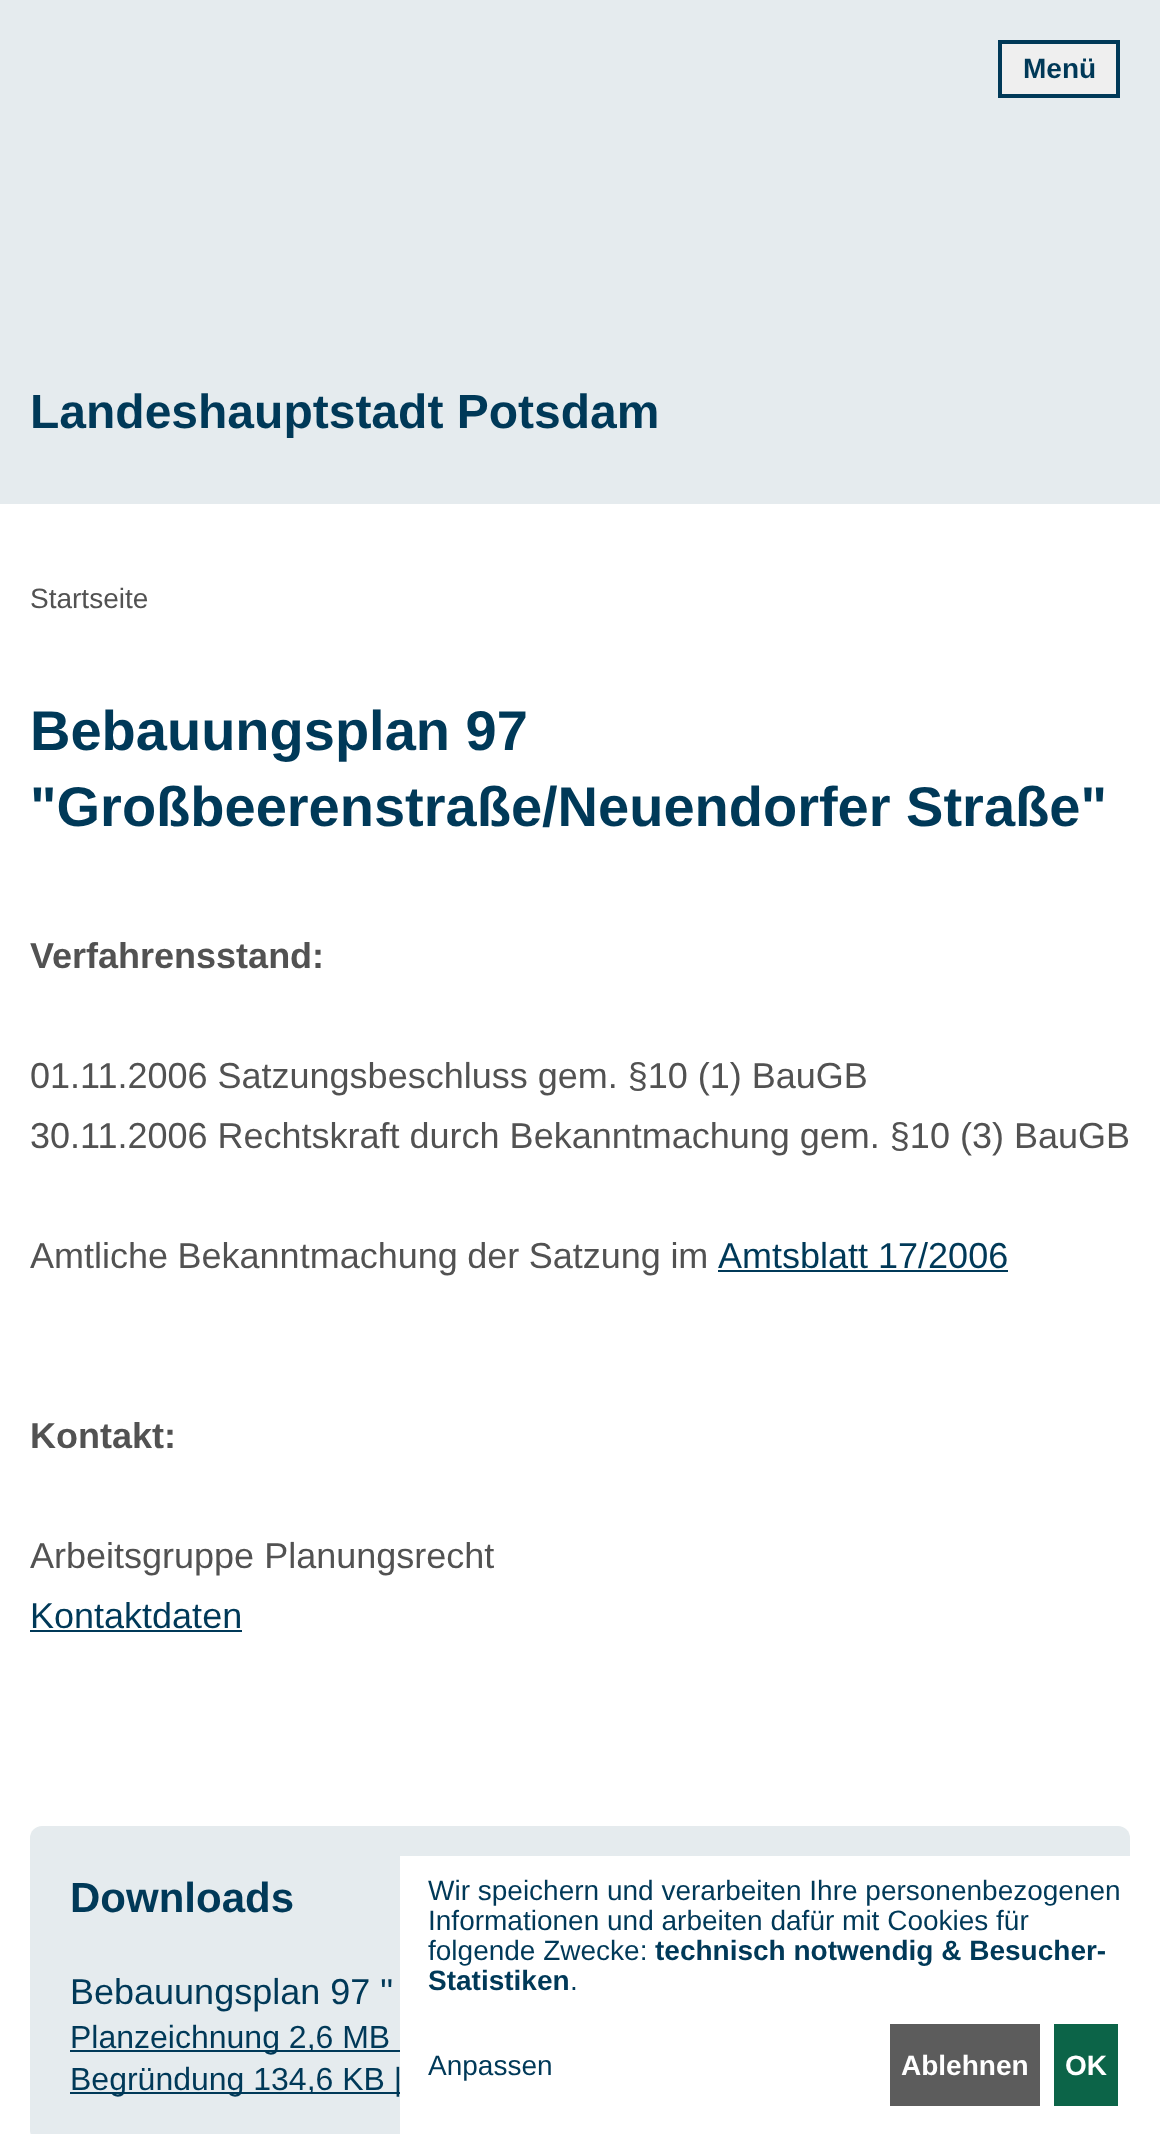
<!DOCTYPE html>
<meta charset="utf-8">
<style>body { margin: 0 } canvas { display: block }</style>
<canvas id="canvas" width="1160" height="2134"></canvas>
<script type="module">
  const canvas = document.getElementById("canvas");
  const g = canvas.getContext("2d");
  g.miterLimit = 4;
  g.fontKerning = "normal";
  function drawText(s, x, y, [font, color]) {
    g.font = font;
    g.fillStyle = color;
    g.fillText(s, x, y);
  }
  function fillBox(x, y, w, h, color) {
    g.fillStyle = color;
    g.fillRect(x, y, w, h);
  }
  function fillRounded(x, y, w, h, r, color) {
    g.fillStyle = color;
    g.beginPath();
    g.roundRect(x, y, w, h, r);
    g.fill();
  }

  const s1 = ["bold 28px Liberation Sans", "#003958"];
  const s2 = ["bold 48px Liberation Sans", "#003958"];
  const s3 = ["28px Liberation Sans", "#525252"];
  const s4 = ["bold 56px Liberation Sans", "#003958"];
  const s5 = ["bold 36px Liberation Sans", "#525252"];
  const s6 = ["36px Liberation Sans", "#525252"];
  const s7 = ["36px Liberation Sans", "#003958"];
  const s8 = ["bold 42px Liberation Sans", "#003958"];
  const s9 = ["32px Liberation Sans", "#003958"];
  const s10 = ["28px Liberation Sans", "#003958"];
  const s11 = ["bold 28px Liberation Sans", "#FFFFFF"];

  fillBox(0, 0, 1160, 2134, "#FFFFFF");
  fillBox(0, 0, 1160, 504, "#E5EBEE");
  g.fillStyle = "#EFEFEF";
  g.beginPath();
  g.rect(1000, 42, 118, 54);
  g.fill();
  g.strokeStyle = "#003958";
  g.lineWidth = 4;
  g.stroke();
  drawText("Menü", 1023, 78, s1);
  drawText("Landeshauptstadt Potsdam", 30, 428, s2);
  drawText("Startseite", 30, 608, s3);
  drawText("Bebauungsplan 97", 30, 750, s4);
  drawText("\"Großbeerenstraße/Neuendorfer Straße\"", 30, 826, s4);
  drawText("Verfahrensstand:", 30, 968, s5);
  drawText("01.11.2006 Satzungsbeschluss gem. §10 (1) BauGB", 30, 1088, s6);
  drawText("30.11.2006 Rechtskraft durch Bekanntmachung gem. §10 (3) BauGB", 30, 1148, s6);
  g.wordSpacing = "-0.5px";
  drawText("Amtliche Bekanntmachung der Satzung im", 30, 1268, s6);
  g.wordSpacing = "0px";
  drawText("Amtsblatt 17/2006", 718, 1268, s7);
  fillBox(718, 1270, 290, 2, "#003958");
  drawText("Kontakt:", 30, 1448, s5);
  drawText("Arbeitsgruppe Planungsrecht", 30, 1568, s6);
  drawText("Kontaktdaten", 30, 1628, s7);
  fillBox(30, 1630, 212, 2, "#003958");
  fillRounded(30, 1826, 1100, 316, 12, "#E5EBEE");
  drawText("Downloads", 70, 1912, s8);
  drawText("Bebauungsplan 97 \"", 70, 2004, s7);
  fillBox(70, 2050, 330, 2, "#003958");
  drawText("Planzeichnung 2,6 MB", 70, 2048, s9);
  fillBox(70, 2092, 330, 2, "#003958");
  drawText("Begründung 134,6 KB |", 70, 2090, s9);
  fillBox(400, 1856, 730, 278, "#FFFFFF");
  drawText("Wir speichern und verarbeiten Ihre personenbezogenen", 428, 1900, s10);
  drawText("Informationen und arbeiten dafür mit Cookies für", 428, 1930, s10);
  drawText("folgende Zwecke:", 428, 1960, s10);
  drawText("technisch notwendig & Besucher-", 655, 1960, s1);
  drawText("Statistiken", 428, 1990, s1);
  drawText(".", 570, 1990, s10);
  drawText("Anpassen", 428, 2075, s10);
  fillBox(890, 2024, 150, 82, "#5C5C5C");
  drawText("Ablehnen", 901, 2075, s11);
  fillBox(1054, 2024, 64, 82, "#0C6448");
  drawText("OK", 1065, 2075, s11);
</script>
